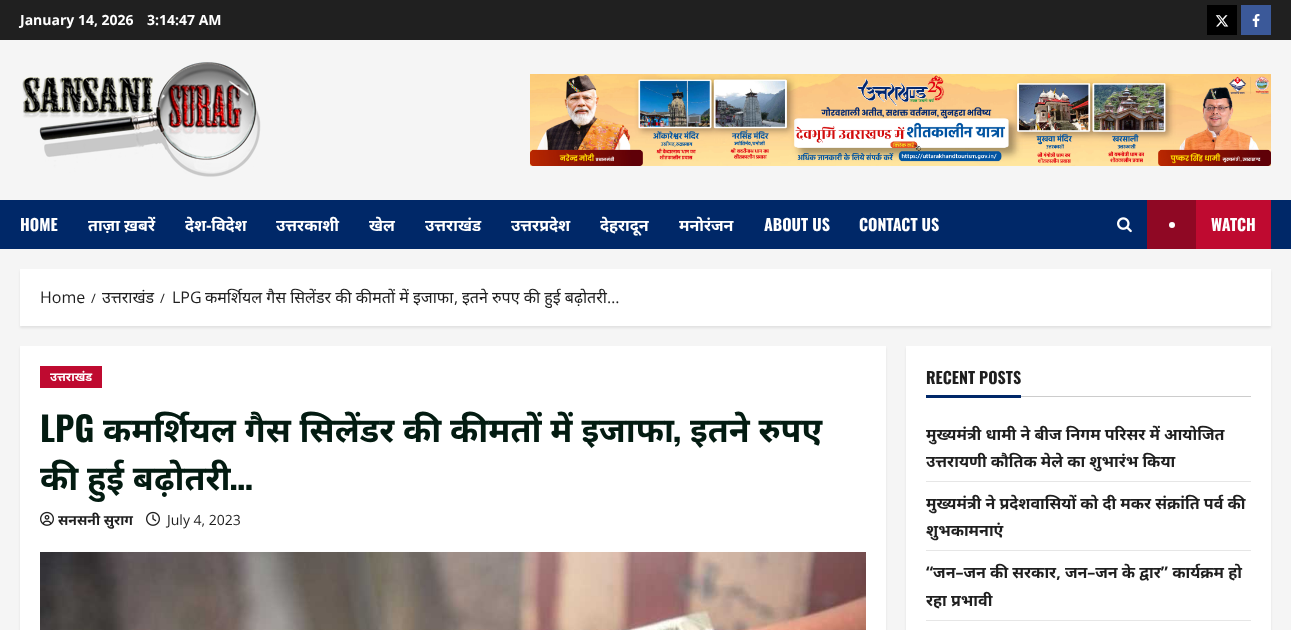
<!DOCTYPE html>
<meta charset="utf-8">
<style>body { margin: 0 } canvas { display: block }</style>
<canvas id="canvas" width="1291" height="630"></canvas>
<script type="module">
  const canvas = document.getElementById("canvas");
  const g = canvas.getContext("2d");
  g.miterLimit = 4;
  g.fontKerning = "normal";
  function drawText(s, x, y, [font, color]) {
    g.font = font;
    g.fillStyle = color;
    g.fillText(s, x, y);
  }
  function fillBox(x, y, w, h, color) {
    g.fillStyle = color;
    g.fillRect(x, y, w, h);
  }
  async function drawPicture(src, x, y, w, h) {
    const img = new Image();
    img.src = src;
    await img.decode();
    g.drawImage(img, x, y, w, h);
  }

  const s1 = ["bold 14px Open Sans", "#FFFFFF"];
  const s2 = ["bold 16px Oswald", "#FFFFFF"];
  const s3 = ["bold 16px Noto Sans", "#FFFFFF"];
  const s4 = ["16px Open Sans", "#1F1F1F"];
  const s5 = ["13px Open Sans", "#1F1F1F"];
  const s6 = ["16px Noto Sans", "#1F1F1F"];
  const s7 = ["bold 12px Noto Sans", "#FFFFFF"];
  const s8 = ["bold 34px Oswald", "#031B11"];
  const s9 = ["bold 34px Noto Sans", "#031B11"];
  const s10 = ["bold 14px Noto Sans", "#1F1F1F"];
  const s11 = ["14px Open Sans", "#1F1F1F"];
  const s12 = ["bold 16px Oswald", "#1F1F1F"];
  const s13 = ["bold 16px Noto Sans", "#1F1F1F"];

  fillBox(0, 0, 1291, 630, "#F5F5F5");
  fillBox(0, 0, 1291, 40, "#202020");
  drawText("January 14, 2026", 20, 25, s1);
  drawText("3:14:47 AM", 147, 25, s1);
  fillBox(1207, 5, 30, 30, "#000000");
  await drawPicture("pic1.png", 1215, 15, 14, 12);
  fillBox(1241, 5, 30, 30, "#3B5999");
  await drawPicture("pic2.png", 1252, 14, 8, 13);
  await drawPicture("pic3.png", 22, 62, 239, 115);
  await drawPicture("pic4.png", 530, 74, 741, 92);
  fillBox(0, 200, 1291, 49, "#002868");
  drawText("HOME", 20, 231, s2);
  drawText("ताज़ा ख़बरें", 88, 231, s3);
  drawText("देश-विदेश", 185, 231, s3);
  drawText("उत्तरकाशी", 276, 231, s3);
  drawText("खेल", 369, 231, s3);
  drawText("उत्तराखंड", 425, 231, s3);
  drawText("उत्तरप्रदेश", 511, 231, s3);
  drawText("देहरादून", 600, 231, s3);
  drawText("मनोरंजन", 679, 231, s3);
  drawText("ABOUT US", 764, 231, s2);
  drawText("CONTACT US", 859, 231, s2);
  await drawPicture("pic5.png", 1117, 217, 15, 16);
  fillBox(1196, 200, 75, 49, "#BF0A30");
  fillBox(1147, 200, 49, 49, "#8F0824");
  g.fillStyle = "#FFFFFF";
  g.beginPath();
  g.arc(1172, 225, 3, 0, Math.PI * 2);
  g.fill();
  drawText("WATCH", 1211, 231, s2);
  g.fillStyle = "rgba(0, 0, 0, 0.08)";
  g.filter = "blur(1px)";
  g.beginPath();
  g.rect(20, 271, 1251, 57);
  g.fill();
  g.filter = "none";
  fillBox(20, 269, 1251, 57, "#FFFFFF");
  drawText("Home", 40, 303, s4);
  drawText("/", 91, 303, s5);
  drawText("उत्तराखंड", 102, 303, s6);
  drawText("/", 160, 303, s5);
  drawText("LPG", 172, 303, s4);
  drawText("कमर्शियल गैस सिलेंडर की कीमतों में इजाफा", 205, 303, s6);
  drawText(",", 454, 303, s4);
  drawText("इतने रुपए की हुई बढ़ोतरी", 462, 303, s6);
  drawText("…", 607, 303, s4);
  g.fillStyle = "rgba(0, 0, 0, 0.08)";
  g.filter = "blur(1px)";
  g.beginPath();
  g.rect(20, 348, 866, 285);
  g.fill();
  g.filter = "none";
  fillBox(20, 346, 866, 284, "#FFFFFF");
  fillBox(40, 366, 62, 22, "#BF0A30");
  drawText("उत्तराखंड", 50, 381, s7);
  drawText("LPG", 40, 442, s8);
  drawText("कमर्शियल गैस सिलेंडर की कीमतों में इजाफा", 103, 442, s9);
  drawText(",", 673, 442, s8);
  drawText("इतने रुपए", 690, 442, s9);
  drawText("की हुई बढ़ोतरी", 40, 490, s9);
  drawText("…", 230, 490, s8);
  await drawPicture("pic6.png", 40, 511, 14, 15);
  drawText("सनसनी सुराग", 58, 525, s10);
  await drawPicture("pic7.png", 146, 511, 14, 15);
  drawText("July 4, 2023", 167, 525, s11);
  await drawPicture("pic8.png", 40, 552, 826, 78);
  g.fillStyle = "rgba(0, 0, 0, 0.08)";
  g.filter = "blur(1px)";
  g.beginPath();
  g.rect(906, 348, 365, 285);
  g.fill();
  g.filter = "none";
  fillBox(906, 346, 365, 284, "#FFFFFF");
  drawText("RECENT POSTS", 926, 384, s12);
  fillBox(926, 395, 95, 3, "#002868");
  fillBox(1021, 396, 230, 1, "#CCCCCC");
  fillBox(926, 481, 325, 1, "#E6E6E6");
  g.save();
  g.beginPath();
  g.rect(926, 366, 325, 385);
  g.clip();
  drawText("मुख्यमंत्री धामी ने बीज निगम परिसर में आयोजित", 926, 440, s13);
  g.restore();
  drawText("उत्तरायणी कौतिक मेले का शुभारंभ किया", 926, 467, s13);
  fillBox(926, 550, 325, 1, "#E6E6E6");
  g.save();
  g.beginPath();
  g.rect(926, 366, 325, 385);
  g.clip();
  drawText("मुख्यमंत्री ने प्रदेशवासियों को दी मकर संक्रांति पर्व की", 926, 509, s13);
  drawText("शुभकामनाएं", 926, 536, s13);
  g.restore();
  fillBox(926, 620, 325, 1, "#E6E6E6");
  drawText("“जन–जन की सरकार, जन–जन के द्वार” कार्यक्रम हो", 926, 578, s13);
  drawText("रहा प्रभावी", 926, 606, s13);
</script>
